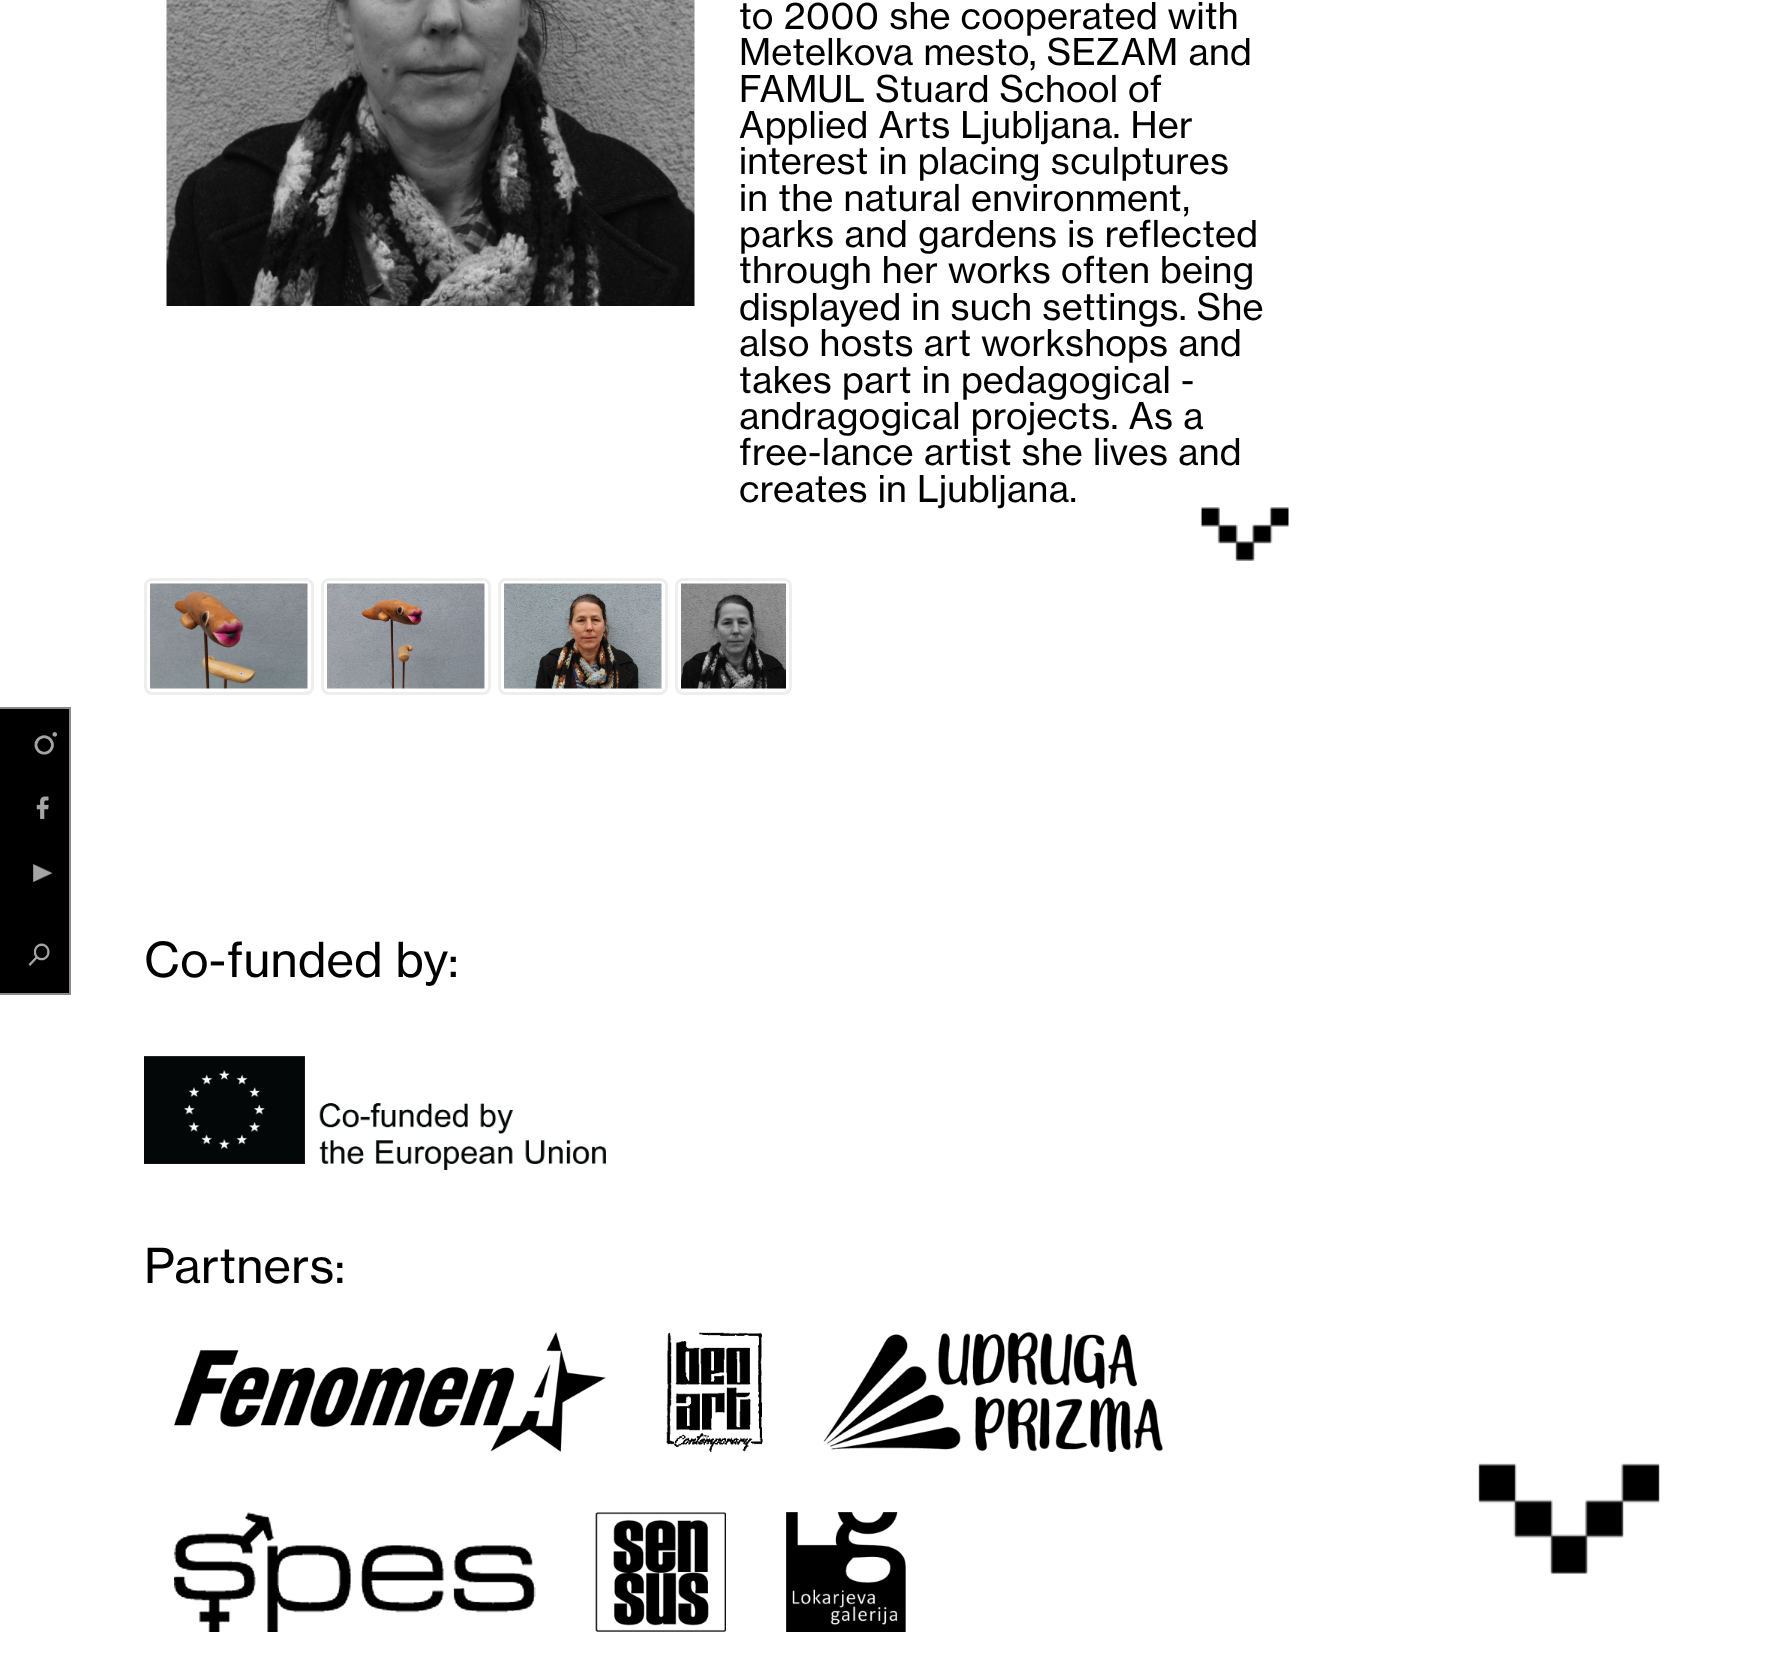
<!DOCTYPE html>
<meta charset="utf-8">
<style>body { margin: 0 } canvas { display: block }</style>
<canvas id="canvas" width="1781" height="1661"></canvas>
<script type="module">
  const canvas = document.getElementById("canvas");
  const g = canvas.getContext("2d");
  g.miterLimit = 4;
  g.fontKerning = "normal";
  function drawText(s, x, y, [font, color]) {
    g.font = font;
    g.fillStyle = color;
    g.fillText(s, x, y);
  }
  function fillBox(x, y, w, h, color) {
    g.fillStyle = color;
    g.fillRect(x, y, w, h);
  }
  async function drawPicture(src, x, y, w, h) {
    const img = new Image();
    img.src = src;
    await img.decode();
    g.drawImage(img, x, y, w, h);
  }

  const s1 = ["36.4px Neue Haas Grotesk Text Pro", "#000000"];
  const s2 = ["47.5px Neue Haas Grotesk Text Pro", "#000000"];

  fillBox(0, 0, 1781, 1661, "#FFFFFF");
  await drawPicture("pic1.png", 166, 0, 529, 306);
  g.letterSpacing = "0.25px";
  drawText("to 2000 she cooperated with", 739, 29, s1);
  drawText("Metelkova mesto, SEZAM and", 739, 65, s1);
  drawText("FAMUL Stuard School of", 739, 102, s1);
  drawText("Applied Arts Ljubljana. Her", 739, 138, s1);
  drawText("interest in placing sculptures", 739, 174, s1);
  drawText("in the natural environment,", 739, 211, s1);
  drawText("parks and gardens is reflected", 739, 247, s1);
  drawText("through her works often being", 739, 283, s1);
  drawText("displayed in such settings. She", 739, 320, s1);
  drawText("also hosts art workshops and", 739, 356, s1);
  drawText("takes part in pedagogical -", 739, 393, s1);
  drawText("andragogical projects. As a", 739, 429, s1);
  drawText("free-lance artist she lives and", 739, 465, s1);
  drawText("creates in Ljubljana.", 739, 502, s1);
  await drawPicture("pic2.png", 1200, 507, 89, 54);
  g.beginPath();
  g.roundRect(145.5, 579.5, 167, 114, 6.5);
  g.strokeStyle = "#EEEEEE";
  g.lineWidth = 3;
  g.stroke();
  await drawPicture("pic3.png", 150, 583, 158, 106);
  g.beginPath();
  g.roundRect(322.5, 579.5, 167, 114, 6.5);
  g.stroke();
  await drawPicture("pic4.png", 327, 583, 158, 106);
  g.beginPath();
  g.roundRect(499.5, 579.5, 167, 114, 6.5);
  g.stroke();
  await drawPicture("pic5.png", 504, 583, 158, 106);
  g.beginPath();
  g.roundRect(676.5, 579.5, 114, 114, 6.5);
  g.stroke();
  await drawPicture("pic6.png", 681, 583, 105, 106);
  g.beginPath();
  g.rect(-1, 708, 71, 286);
  g.fill();
  g.strokeStyle = "#8C8888";
  g.lineWidth = 2;
  g.stroke();
  await drawPicture("pic7.png", 34, 732, 23, 23);
  await drawPicture("pic8.png", 36, 796, 13, 23);
  await drawPicture("pic9.png", 33, 864, 20, 18);
  await drawPicture("pic10.png", 28, 943, 22, 23);
  drawText("Co-funded by:", 144, 977, s2);
  await drawPicture("pic11.png", 144, 1056, 462, 114);
  drawText("Partners:", 144, 1283, s2);
  await drawPicture("pic12.png", 174, 1332, 432, 120);
  await drawPicture("pic13.png", 666, 1332, 97, 120);
  await drawPicture("pic14.png", 823, 1332, 340, 120);
  await drawPicture("pic15.png", 174, 1512, 362, 120);
  await drawPicture("pic16.png", 595, 1512, 131, 120);
  await drawPicture("pic17.png", 786, 1512, 120, 120);
  await drawPicture("pic18.png", 1478, 1463, 182, 111);
</script>
